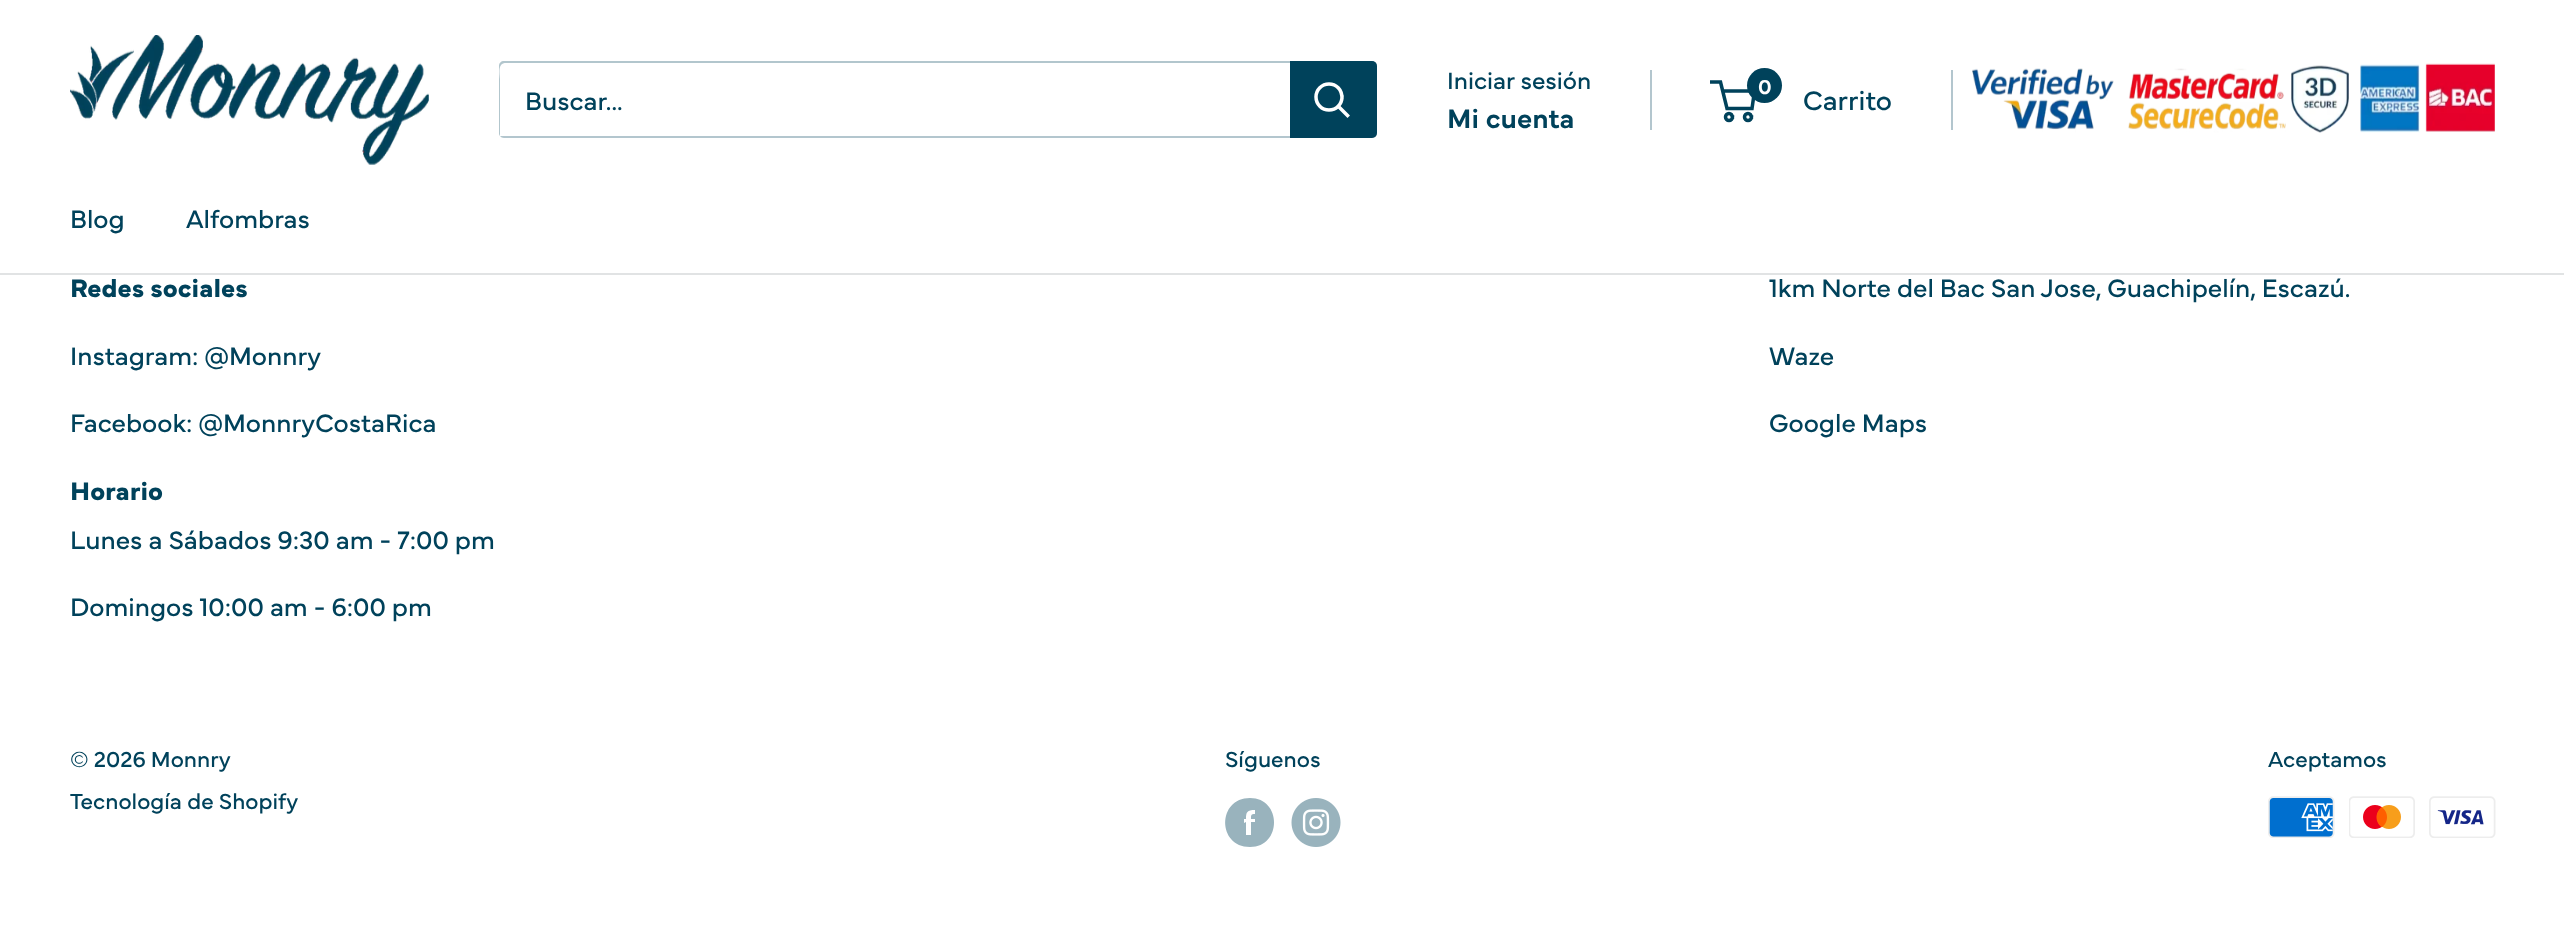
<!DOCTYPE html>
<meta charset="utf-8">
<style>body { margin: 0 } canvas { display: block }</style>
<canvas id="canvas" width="2564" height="933"></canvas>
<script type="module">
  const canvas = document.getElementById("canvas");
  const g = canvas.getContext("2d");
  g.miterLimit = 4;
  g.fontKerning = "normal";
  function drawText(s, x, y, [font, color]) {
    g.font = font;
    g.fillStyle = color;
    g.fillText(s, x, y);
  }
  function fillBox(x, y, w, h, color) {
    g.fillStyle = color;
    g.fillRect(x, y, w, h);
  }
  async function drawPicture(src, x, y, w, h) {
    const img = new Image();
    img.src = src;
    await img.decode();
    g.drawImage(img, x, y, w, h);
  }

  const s1 = ["26.25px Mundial", "#00425B"];
  const s2 = ["24.5px Mundial", "#00425B"];
  const s3 = ["600 28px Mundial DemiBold", "#00425B"];
  const s4 = ["600 21px Mundial DemiBold", "#FFFFFF"];
  const s5 = ["28px Mundial", "#00425B"];
  const s6 = ["bold 26.25px Mundial", "#00425B"];
  const s7 = ["22.75px Mundial", "#00425B"];

  fillBox(0, 0, 2564, 933, "#FFFFFF");
  await drawPicture("pic1.png", 70, 35, 359, 130);
  g.fillStyle = "#B3C6CE";
  g.beginPath();
  g.moveTo(500, 136);
  g.bezierCurveTo(501, 137, 502, 138, 504, 138);
  g.lineTo(1372, 138);
  g.bezierCurveTo(1375, 138, 1377, 136, 1377, 133);
  g.lineTo(1377, 66);
  g.bezierCurveTo(1377, 64, 1376, 62, 1374, 62);
  g.bezierCurveTo(1375, 62, 1376, 64, 1376, 65);
  g.lineTo(1376, 131);
  g.bezierCurveTo(1376, 134, 1373, 136, 1370, 136);
  g.lineTo(502, 136);
  g.closePath();
  g.fill();
  g.fillStyle = "rgba(0, 66, 91, 0.3)";
  g.beginPath();
  g.moveTo(506, 63);
  g.lineTo(1374, 63);
  g.lineTo(1376, 63);
  g.bezierCurveTo(1375, 62, 1374, 61, 1372, 61);
  g.lineTo(504, 61);
  g.bezierCurveTo(501, 61, 499, 63, 499, 66);
  g.lineTo(499, 133);
  g.bezierCurveTo(499, 134, 499, 135, 500, 136);
  g.lineTo(500, 79);
  g.bezierCurveTo(500, 74, 497, 63, 506, 63);
  g.closePath();
  g.fill();
  drawText("Buscar...", 525, 110, s1);
  g.beginPath();
  g.roundRect(1290, 61, 87, 77, [0, 5, 5, 0]);
  g.fill();
  g.beginPath();
  g.moveTo(1347.5, 115.5);
  g.lineTo(1339, 107);
  g.strokeStyle = "#FFFFFF";
  g.lineWidth = 3.5;
  g.lineCap = "square";
  g.stroke();
  g.beginPath();
  g.arc(1329, 97, 13, 0, Math.PI * 2);
  g.stroke();
  drawText("Iniciar sesión", 1447, 89, s2);
  fillBox(1650, 70, 2, 60, "#B3C6CE");
  drawText("Mi cuenta", 1447, 128, s3);
  g.beginPath();
  g.arc(1729, 117, 3.5, 0, Math.PI * 2);
  g.strokeStyle = "#00425B";
  g.stroke();
  g.beginPath();
  g.arc(1748, 117, 3.5, 0, Math.PI * 2);
  g.stroke();
  g.beginPath();
  g.moveTo(1722.5, 91);
  g.lineTo(1754.5, 91);
  g.lineTo(1752, 108.5);
  g.lineTo(1727, 108.5);
  g.lineTo(1720.5, 82);
  g.lineTo(1710, 82);
  g.lineCap = "butt";
  g.stroke();
  g.beginPath();
  g.arc(1764.5, 85.5, 17.5, 0, Math.PI * 2);
  g.fill();
  drawText("0", 1758, 94, s4);
  drawText("Carrito", 1803, 110, s5);
  fillBox(1951, 70, 2, 60, "#B3C6CE");
  await drawPicture("pic2.png", 1972, 63, 523, 70);
  fillBox(0, 273, 2564, 2, "#E1E3E4");
  drawText("Blog", 70, 228, s1);
  drawText("Alfombras", 186, 228, s1);
  drawText("Redes sociales", 70, 297, s6);
  drawText("Instagram: @Monnry", 70, 365, s1);
  drawText("Facebook: @MonnryCostaRica", 70, 432, s1);
  drawText("Horario", 70, 500, s6);
  drawText("Lunes a Sábados 9:30 am - 7:00 pm", 70, 549, s1);
  drawText("Domingos 10:00 am - 6:00 pm", 70, 616, s1);
  drawText("1km Norte del Bac San Jose, Guachipelín, Escazú.", 1769, 297, s1);
  drawText("Waze", 1769, 365, s1);
  drawText("Google Maps", 1769, 432, s1);
  drawText("© 2026 Monnry", 70, 767, s7);
  drawText("Tecnología de Shopify", 70, 809, s7);
  drawText("Síguenos", 1225, 767, s7);
  g.fillStyle = "#99B3BD";
  g.beginPath();
  g.moveTo(1250, 847);
  g.bezierCurveTo(1217, 847, 1217, 798, 1250, 798);
  g.bezierCurveTo(1282, 798, 1282, 847, 1250, 847);
  g.closePath();
  g.moveTo(1255, 819);
  g.lineTo(1251, 819);
  g.bezierCurveTo(1251, 815, 1251, 814, 1255, 814);
  g.lineTo(1255, 810);
  g.bezierCurveTo(1247, 810, 1246, 812, 1246, 819);
  g.lineTo(1244, 819);
  g.lineTo(1244, 823);
  g.lineTo(1246, 822);
  g.lineTo(1246, 835);
  g.lineTo(1251, 835);
  g.lineTo(1251, 822);
  g.lineTo(1255, 822);
  g.closePath();
  g.fill("evenodd");
  await drawPicture("pic3.png", 1291, 798, 50, 49);
  drawText("Aceptamos", 2268, 767, s7);
  await drawPicture("pic4.png", 2268, 796, 67, 42);
  await drawPicture("pic5.png", 2349, 796, 66, 42);
  await drawPicture("pic6.png", 2429, 796, 67, 42);
</script>
